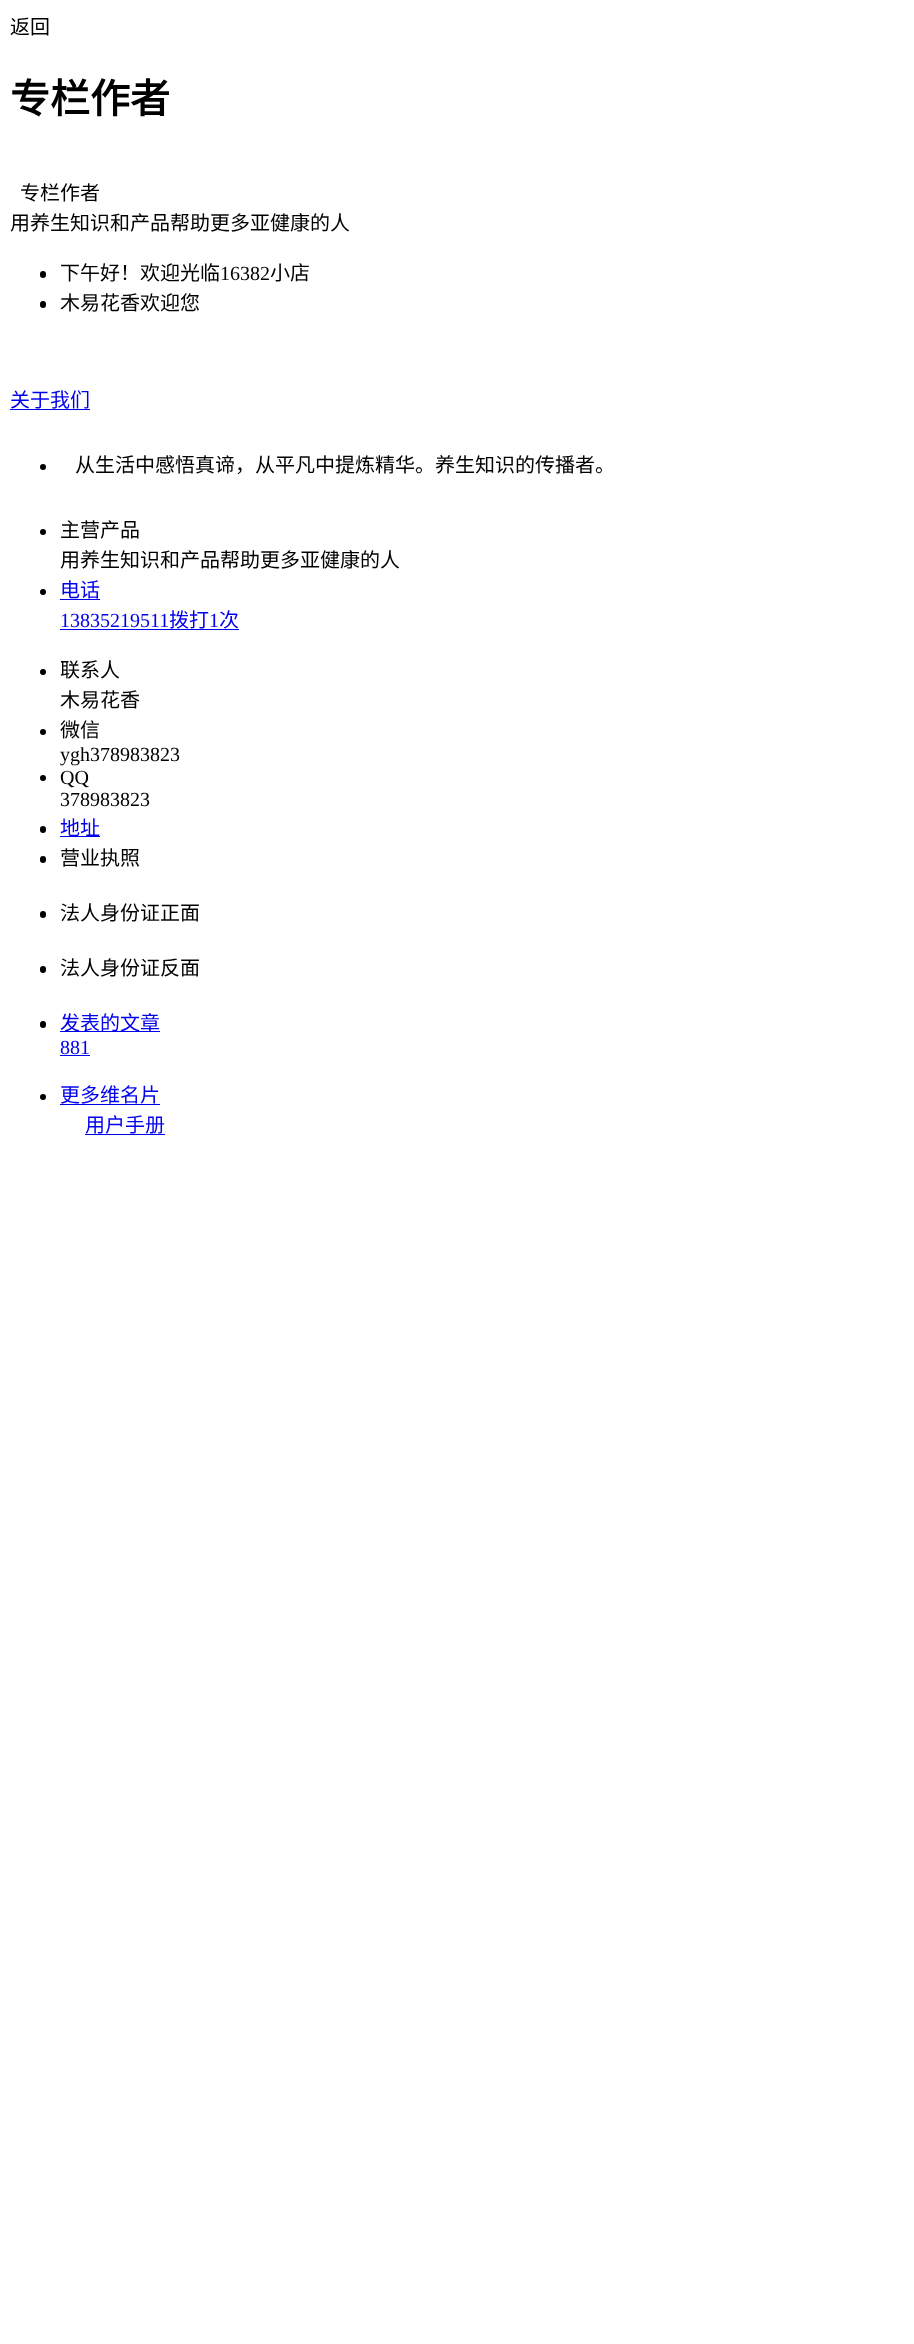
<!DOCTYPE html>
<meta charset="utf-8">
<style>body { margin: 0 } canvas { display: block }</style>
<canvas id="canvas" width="914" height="2344"></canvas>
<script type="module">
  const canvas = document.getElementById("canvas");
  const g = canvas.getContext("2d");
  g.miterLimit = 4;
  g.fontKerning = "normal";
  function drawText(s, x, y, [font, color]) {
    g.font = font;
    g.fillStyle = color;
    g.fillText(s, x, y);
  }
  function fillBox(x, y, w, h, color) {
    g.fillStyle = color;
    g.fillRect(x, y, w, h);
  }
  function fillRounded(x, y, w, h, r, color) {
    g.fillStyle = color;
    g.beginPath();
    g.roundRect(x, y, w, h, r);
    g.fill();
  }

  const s1 = ["20px Noto Sans CJK SC", "#000000"];
  const s2 = ["bold 40px Noto Sans CJK SC", "#000000"];
  const s3 = ["20px Liberation Serif", "#000000"];
  const s4 = ["20px Noto Sans CJK SC", "#0000EE"];
  const s5 = ["20px Liberation Serif", "#0000EE"];

  fillBox(0, 0, 914, 2344, "#FFFFFF");
  drawText("返回", 10, 34, s1);
  drawText("专栏作者", 10, 113, s2);
  drawText("专栏作者", 20, 200, s1);
  drawText("用养生知识和产品帮助更多亚健康的人", 10, 230, s1);
  fillRounded(40, 271, 6, 7, 3, "#000000");
  drawText("下午好！欢迎光临", 60, 280, s1);
  drawText("16382", 220, 280, s3);
  drawText("小店", 270, 280, s1);
  fillRounded(40, 301, 6, 7, 3, "#000000");
  drawText("木易花香欢迎您", 60, 310, s1);
  drawText("关于我们", 10, 407, s4);
  fillBox(10, 409, 80, 1, "#0000EE");
  g.fillStyle = "#000000";
  g.beginPath();
  g.arc(43, 467, 3, 0, Math.PI * 2);
  g.fill();
  drawText("从生活中感悟真谛，从平凡中提炼精华。养生知识的传播者。", 75, 472, s1);
  g.beginPath();
  g.arc(43, 532, 3, 0, Math.PI * 2);
  g.fill();
  drawText("主营产品", 60, 537, s1);
  drawText("用养生知识和产品帮助更多亚健康的人", 60, 567, s1);
  g.beginPath();
  g.arc(43, 592, 3, 0, Math.PI * 2);
  g.fill();
  drawText("电话", 60, 597, s4);
  fillBox(60, 599, 40, 1, "#0000EE");
  drawText("13835219511", 60, 627, s5);
  fillBox(60, 629, 179, 1, "#0000EE");
  drawText("拨打", 169, 627, s4);
  drawText("1", 209, 627, s5);
  drawText("次", 219, 627, s4);
  g.fillStyle = "#000000";
  g.beginPath();
  g.arc(43, 672, 3, 0, Math.PI * 2);
  g.fill();
  drawText("联系人", 60, 677, s1);
  drawText("木易花香", 60, 707, s1);
  g.beginPath();
  g.arc(43, 732, 3, 0, Math.PI * 2);
  g.fill();
  drawText("微信", 60, 737, s1);
  drawText("ygh378983823", 60, 761, s3);
  g.beginPath();
  g.arc(43, 778, 3, 0, Math.PI * 2);
  g.fill();
  drawText("QQ", 60, 784, s3);
  drawText("378983823", 60, 806, s3);
  fillRounded(40, 826, 6, 7, 3, "#000000");
  fillBox(60, 836, 40, 1, "#0000EE");
  drawText("地址", 60, 835, s4);
  fillRounded(40, 856, 6, 7, 3, "#000000");
  drawText("营业执照", 60, 865, s1);
  fillRounded(40, 911, 6, 7, 3, "#000000");
  drawText("法人身份证正面", 60, 920, s1);
  fillRounded(40, 966, 6, 7, 3, "#000000");
  drawText("法人身份证反面", 60, 975, s1);
  fillRounded(40, 1021, 6, 7, 3, "#000000");
  fillBox(60, 1031, 100, 1, "#0000EE");
  drawText("发表的文章", 60, 1030, s4);
  drawText("881", 60, 1054, s5);
  fillBox(60, 1055, 30, 1, "#0000EE");
  g.fillStyle = "#000000";
  g.beginPath();
  g.arc(43, 1097, 3, 0, Math.PI * 2);
  g.fill();
  drawText("更多维名片", 60, 1102, s4);
  fillBox(60, 1104, 100, 1, "#0000EE");
  drawText("用户手册", 85, 1132, s4);
  fillBox(85, 1134, 80, 1, "#0000EE");
</script>
